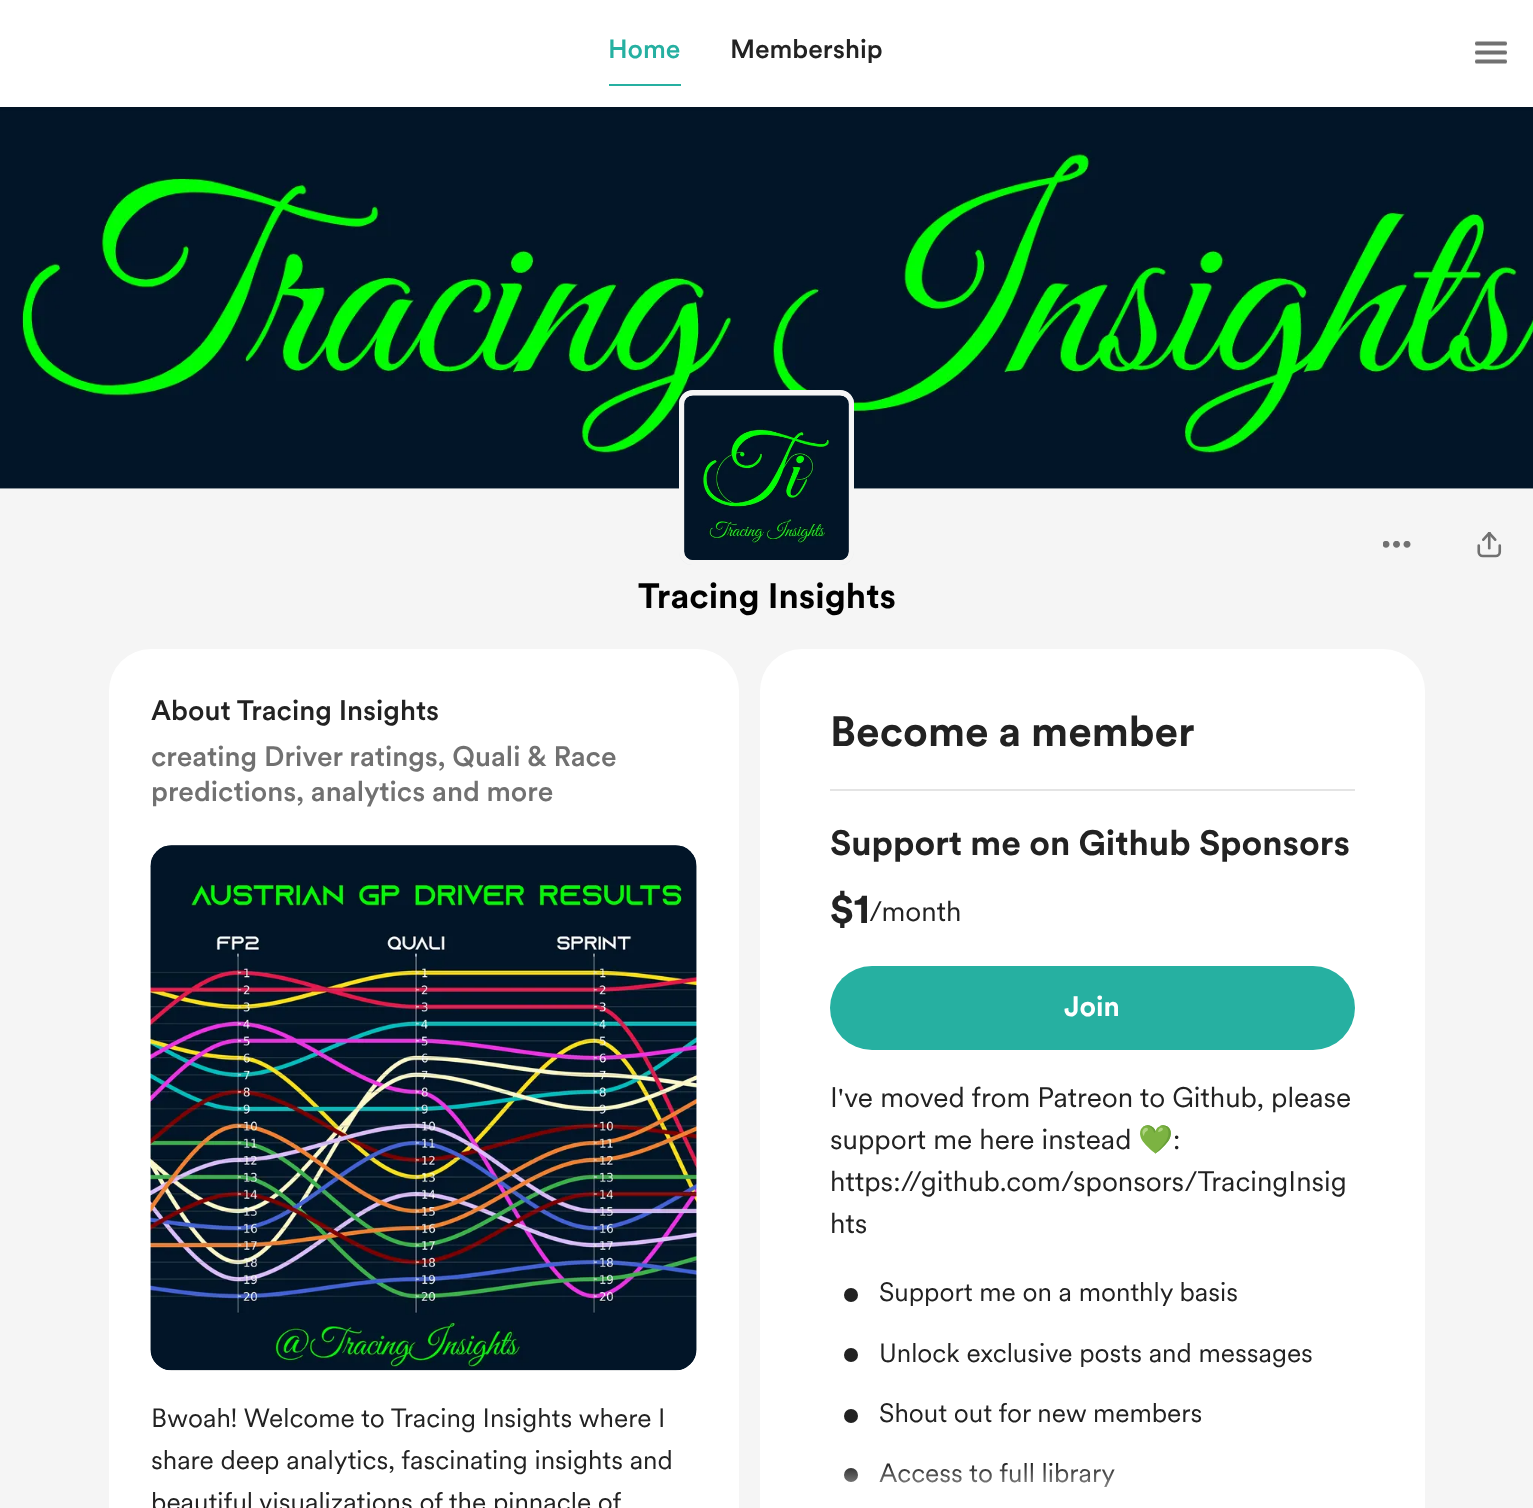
<!DOCTYPE html>
<meta charset="utf-8">
<style>body { margin: 0 } canvas { display: block }</style>
<canvas id="canvas" width="1533" height="1508"></canvas>
<script type="module">
  const canvas = document.getElementById("canvas");
  const g = canvas.getContext("2d");
  g.miterLimit = 4;
  g.fontKerning = "normal";
  function drawText(s, x, y, [font, color]) {
    g.font = font;
    g.fillStyle = color;
    g.fillText(s, x, y);
  }
  function fillBox(x, y, w, h, color) {
    g.fillStyle = color;
    g.fillRect(x, y, w, h);
  }
  function fillRounded(x, y, w, h, r, color) {
    g.fillStyle = color;
    g.beginPath();
    g.roundRect(x, y, w, h, r);
    g.fill();
  }
  async function drawPicture(src, x, y, w, h) {
    const img = new Image();
    img.src = src;
    await img.decode();
    g.drawImage(img, x, y, w, h);
  }
  let gradient;

  const s1 = ["500 26.25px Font", "#26B0A1"];
  const s2 = ["500 26.25px Font", "#222222"];
  const s3 = ["bold 35px Font", "#000000"];
  const s4 = ["500 28px Font", "#222222"];
  const s5 = ["500 28px Font", "#717171"];
  const s6 = ["26.25px Font", "#222222"];
  const s7 = ["bold 42px Font", "#222222"];
  const s8 = ["bold 35px Font", "#222222"];
  const s9 = ["28px Font", "#222222"];
  const s10 = ["bold 28px Font", "#FFFFFF"];
  const s11 = ["28px Noto Color Emoji", "#222222"];

  fillBox(0, 0, 1533, 1508, "#F5F5F5");
  await drawPicture("pic2.png", 0, 488, 1533, 1);
  await drawPicture("pic3.png", 0, 107, 1533, 382);
  g.fillStyle = "rgba(0, 0, 0, 0.06)";
  g.filter = "blur(1px)";
  g.beginPath();
  g.rect(0, 2, 1533, 107);
  g.fill();
  g.filter = "none";
  fillBox(0, 0, 1533, 107, "#FFFFFF");
  drawText("Home", 608, 58, s1);
  fillBox(609, 84, 72, 2, "#26B0A1");
  drawText("Membership", 730, 58, s2);
  await drawPicture("pic1.png", 1475, 41, 32, 23);
  await drawPicture("pic4.png", 1383, 541, 28, 7);
  await drawPicture("pic5.png", 1477, 532, 25, 26);
  await drawPicture("pic6.png", 679, 390, 175, 175);
  g.beginPath();
  g.roundRect(681.5, 392.5, 170, 170, 11.5);
  g.strokeStyle = "#F5F5F5";
  g.lineWidth = 5;
  g.stroke();
  await drawPicture("pic7.png", 684, 395, 165, 165);
  drawText("Tracing Insights", 638, 608, s3);
  fillRounded(109, 649, 630, 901, 42, "#FFFFFF");
  drawText("About Tracing Insights", 151, 720, s4);
  drawText("creating Driver ratings, Quali & Race", 151, 766, s5);
  drawText("predictions, analytics and more", 151, 801, s5);
  await drawPicture("pic8.png", 150, 845, 547, 526);
  await drawPicture("pic9.png", 150, 845, 547, 526);
  drawText("Bwoah! Welcome to Tracing Insights where I", 151, 1427, s6);
  drawText("share deep analytics, fascinating insights and", 151, 1469, s6);
  drawText("beautiful visualizations of the pinnacle of", 151, 1511, s6);
  fillRounded(760, 649, 665, 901, 42, "#FFFFFF");
  drawText("Become a member", 830, 746, s7);
  fillBox(830, 789, 525, 2, "#E4E4E4");
  drawText("Support me on Github Sponsors", 830, 855, s8);
  drawText("$1", 830, 923, s7);
  drawText("/month", 869, 921, s9);
  fillRounded(830, 966, 525, 84, 42, "#26B0A1");
  drawText("Join", 1064, 1016, s10);
  drawText("I've moved from Patreon to Github, please", 830, 1107, s9);
  drawText("support me here instead", 830, 1149, s9);
  drawText("💚", 1138, 1149, s11);
  drawText(":", 1173, 1149, s9);
  drawText("https://github.com/sponsors/TracingInsig", 830, 1191, s9);
  drawText("hts", 830, 1233, s9);
  g.beginPath();
  g.arc(851, 1295, 7, 0, Math.PI * 2);
  g.fill();
  drawText("Support me on a monthly basis", 879, 1301, s6);
  g.beginPath();
  g.arc(851, 1355, 7, 0, Math.PI * 2);
  g.fill();
  drawText("Unlock exclusive posts and messages", 879, 1362, s6);
  g.beginPath();
  g.arc(851, 1416, 7, 0, Math.PI * 2);
  g.fill();
  drawText("Shout out for new members", 879, 1422, s6);
  g.beginPath();
  g.arc(851, 1475, 7, 0, Math.PI * 2);
  g.fill();
  drawText("Access to full library", 879, 1482, s6);
  gradient = g.createLinearGradient(1092, 1463, 1092, 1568);
  gradient.addColorStop(0, "rgba(255, 255, 255, 0)");
  gradient.addColorStop(0.5, "#FFFFFF");
  g.fillStyle = gradient;
  g.fillRect(844, 1464, 270, 23);
</script>
